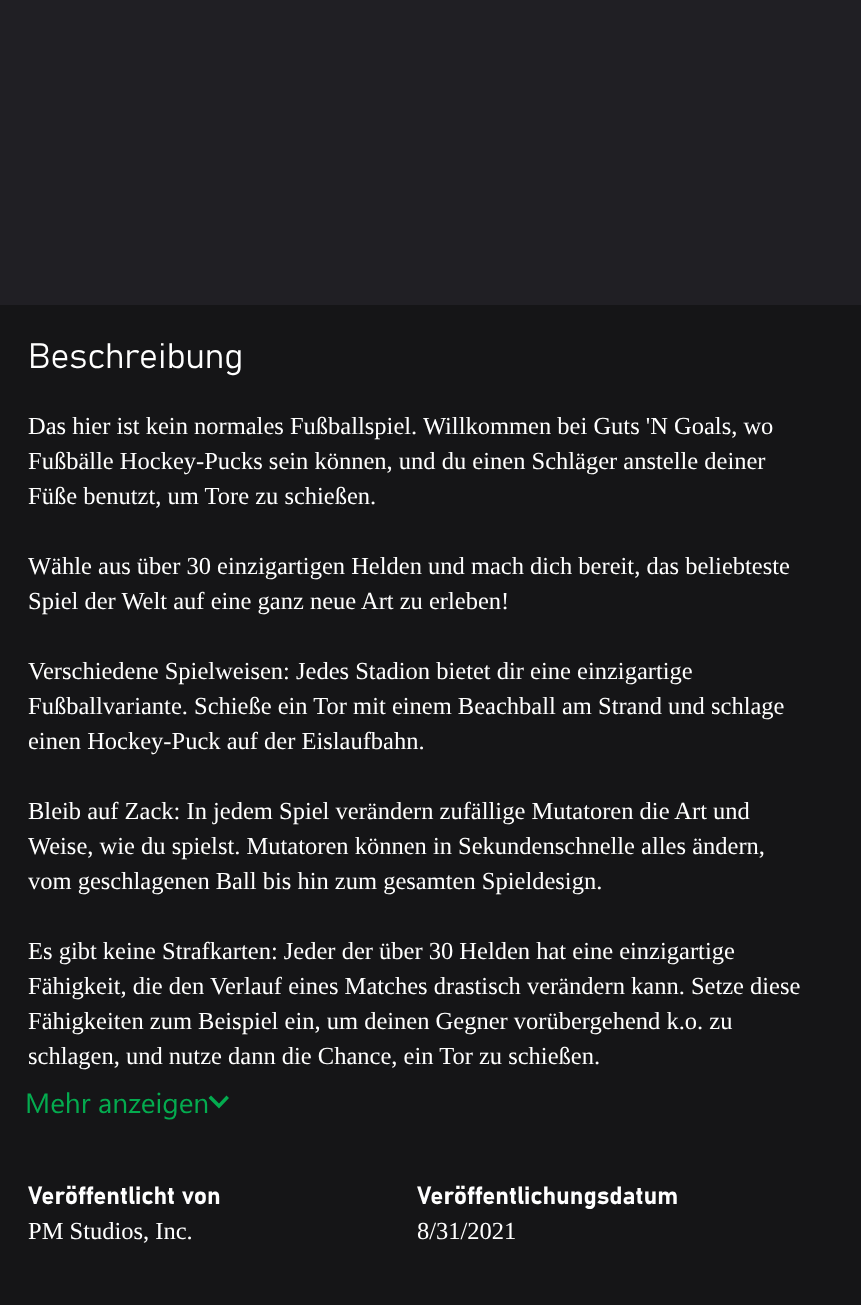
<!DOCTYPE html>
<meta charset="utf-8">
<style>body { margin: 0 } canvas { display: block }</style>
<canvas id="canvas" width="861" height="1305"></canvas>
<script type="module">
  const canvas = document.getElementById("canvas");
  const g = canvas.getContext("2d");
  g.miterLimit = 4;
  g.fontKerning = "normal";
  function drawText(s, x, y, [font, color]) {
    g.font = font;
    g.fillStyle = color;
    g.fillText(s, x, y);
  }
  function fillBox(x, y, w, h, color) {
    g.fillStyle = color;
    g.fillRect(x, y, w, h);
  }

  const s1 = ["300 35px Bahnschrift", "#FFFFFF"];
  const s2 = ["24.5px Liberation Serif", "#FFFFFF"];
  const s3 = ["28px Segoe UI", "#04AB4F"];
  const s4 = ["bold 24.5px Bahnschrift", "#FFFFFF"];

  fillBox(0, 0, 861, 1305, "#201F24");
  fillBox(0, 305, 861, 1000, "#151517");
  drawText("Beschreibung", 28, 368, s1);
  drawText("Das hier ist kein normales Fußballspiel. Willkommen bei Guts 'N Goals, wo", 28, 434, s2);
  drawText("Fußbälle Hockey-Pucks sein können, und du einen Schläger anstelle deiner", 28, 469, s2);
  drawText("Füße benutzt, um Tore zu schießen.", 28, 504, s2);
  drawText("Wähle aus über 30 einzigartigen Helden und mach dich bereit, das beliebteste", 28, 574, s2);
  drawText("Spiel der Welt auf eine ganz neue Art zu erleben!", 28, 609, s2);
  drawText("Verschiedene Spielweisen: Jedes Stadion bietet dir eine einzigartige", 28, 679, s2);
  drawText("Fußballvariante. Schieße ein Tor mit einem Beachball am Strand und schlage", 28, 714, s2);
  drawText("einen Hockey-Puck auf der Eislaufbahn.", 28, 749, s2);
  drawText("Bleib auf Zack: In jedem Spiel verändern zufällige Mutatoren die Art und", 28, 819, s2);
  drawText("Weise, wie du spielst. Mutatoren können in Sekundenschnelle alles ändern,", 28, 854, s2);
  drawText("vom geschlagenen Ball bis hin zum gesamten Spieldesign.", 28, 889, s2);
  drawText("Es gibt keine Strafkarten: Jeder der über 30 Helden hat eine einzigartige", 28, 959, s2);
  drawText("Fähigkeit, die den Verlauf eines Matches drastisch verändern kann. Setze diese", 28, 994, s2);
  drawText("Fähigkeiten zum Beispiel ein, um deinen Gegner vorübergehend k.o. zu", 28, 1029, s2);
  drawText("schlagen, und nutze dann die Chance, ein Tor zu schießen.", 28, 1064, s2);
  drawText("Mehr anzeigen", 25, 1113, s3);
  g.beginPath();
  g.moveTo(226.5, 1095.5);
  g.lineTo(229, 1098);
  g.lineTo(219, 1108.5);
  g.lineTo(208.5, 1098);
  g.lineTo(211, 1095.5);
  g.lineTo(219, 1103.5);
  g.closePath();
  g.fill();
  drawText("Veröffentlicht von", 28, 1204, s4);
  drawText("PM Studios, Inc.", 28, 1239, s2);
  drawText("Veröffentlichungsdatum", 417, 1204, s4);
  drawText("8/31/2021", 417, 1239, s2);
</script>
